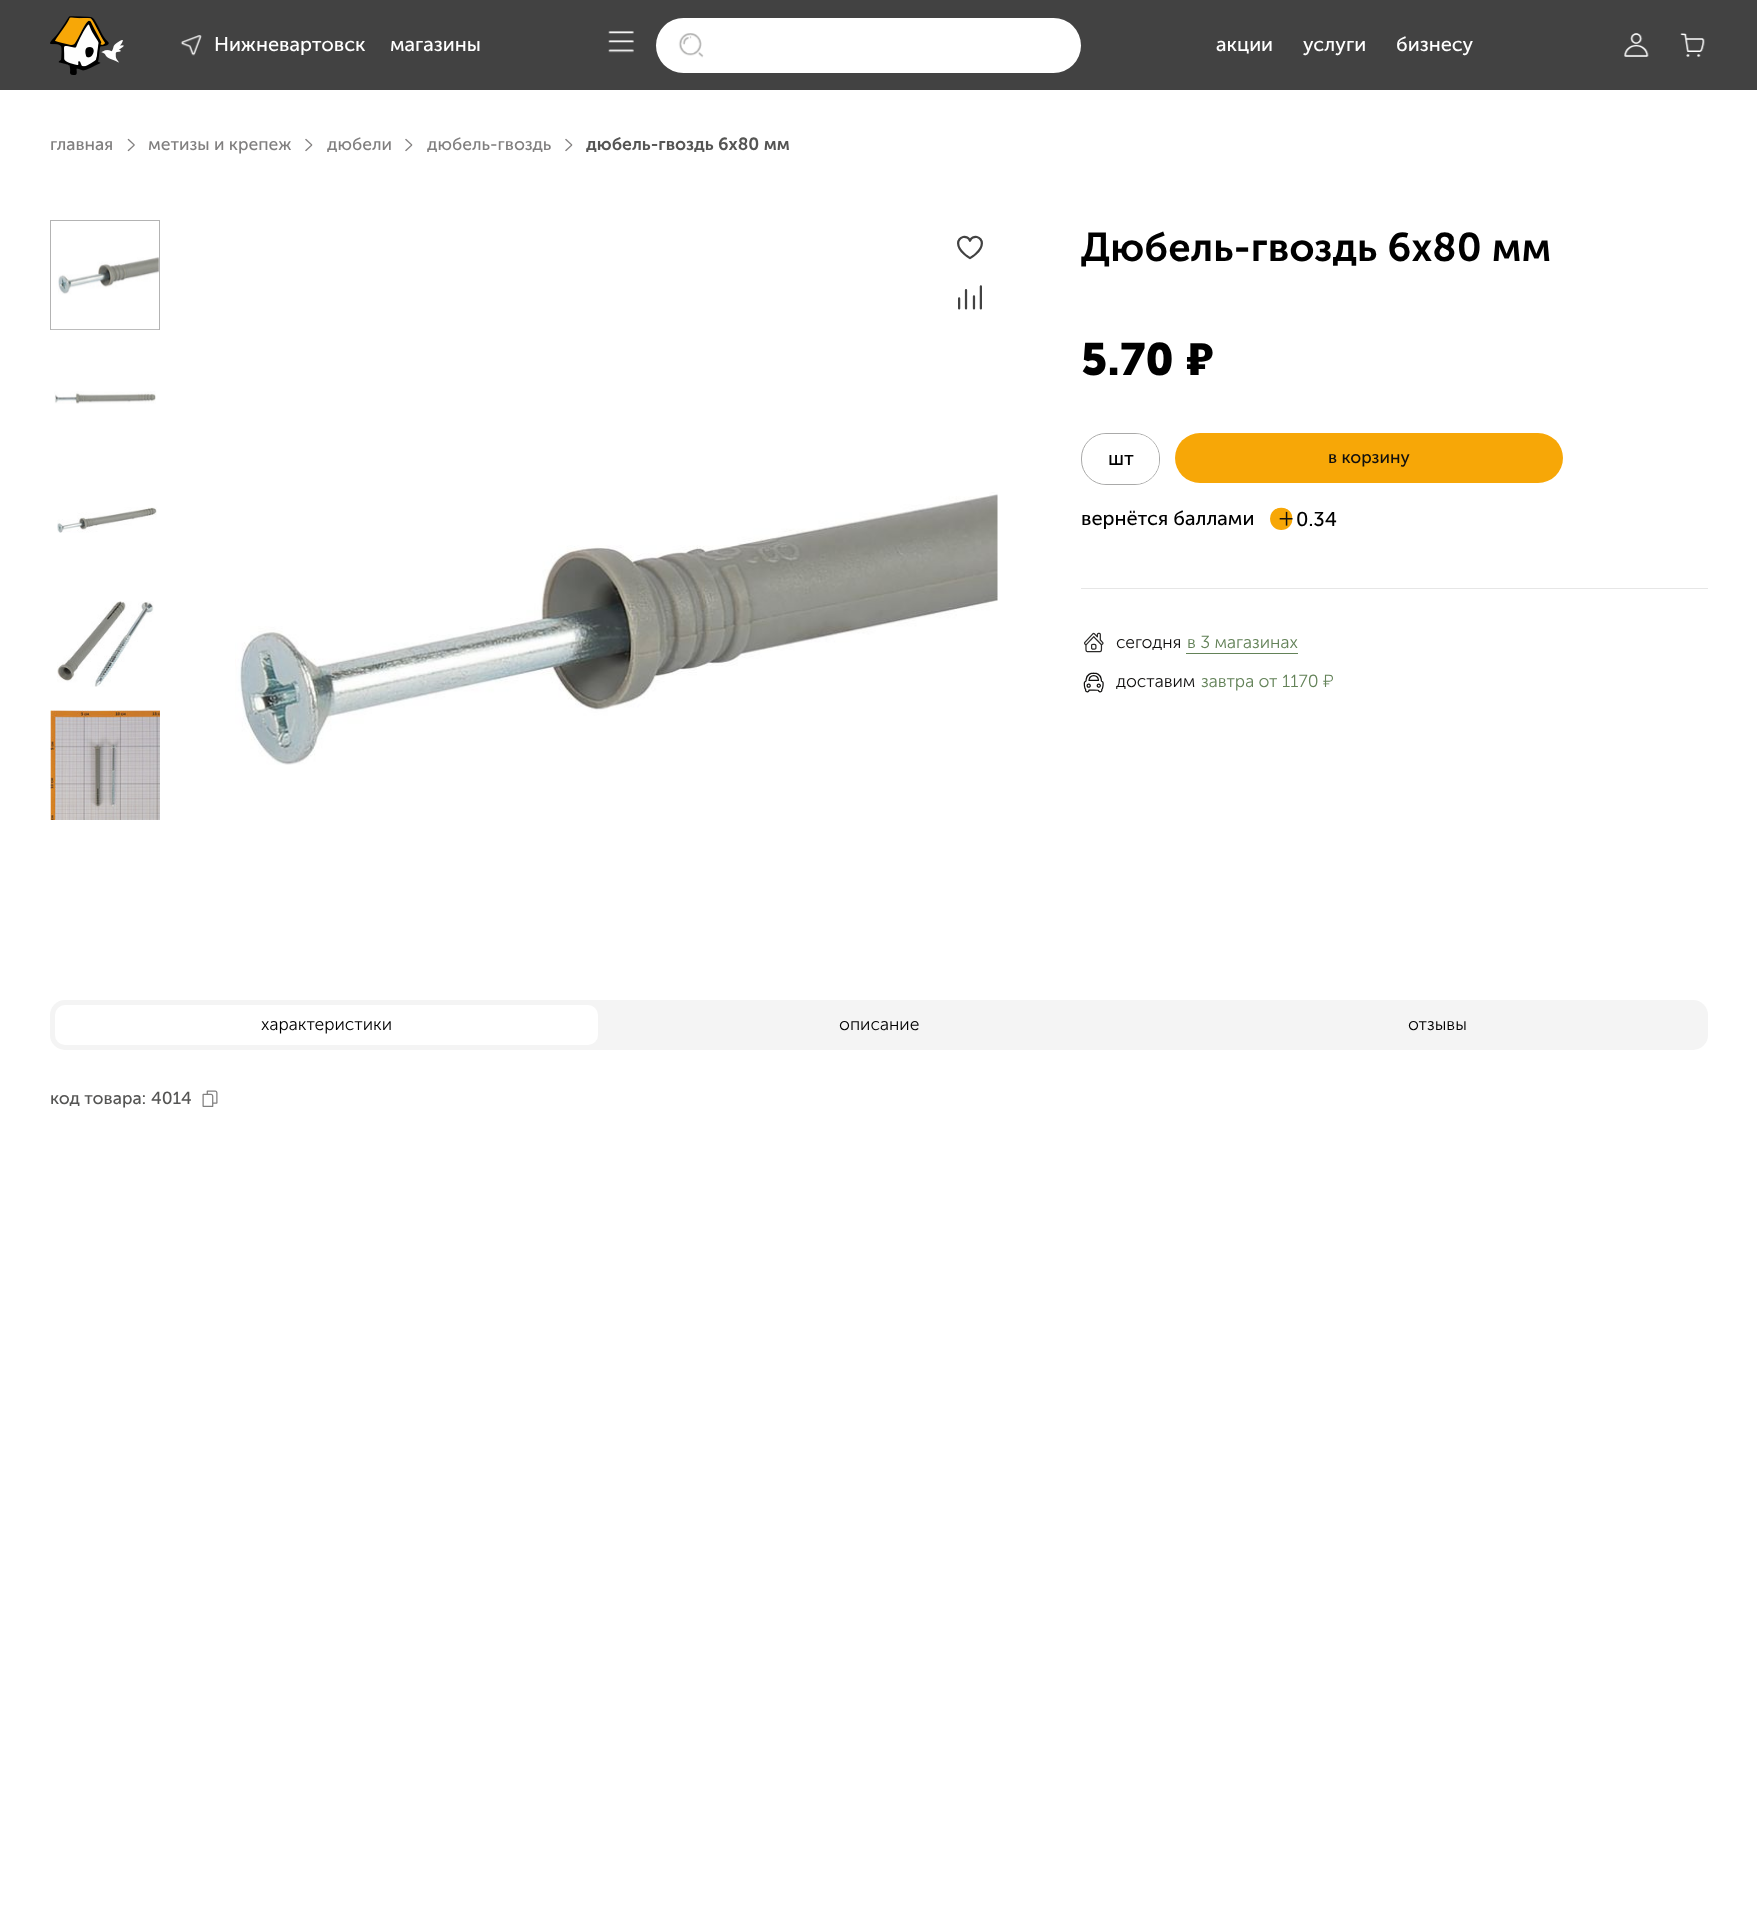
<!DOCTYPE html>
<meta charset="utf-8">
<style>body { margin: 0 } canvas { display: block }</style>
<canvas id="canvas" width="1757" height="1929"></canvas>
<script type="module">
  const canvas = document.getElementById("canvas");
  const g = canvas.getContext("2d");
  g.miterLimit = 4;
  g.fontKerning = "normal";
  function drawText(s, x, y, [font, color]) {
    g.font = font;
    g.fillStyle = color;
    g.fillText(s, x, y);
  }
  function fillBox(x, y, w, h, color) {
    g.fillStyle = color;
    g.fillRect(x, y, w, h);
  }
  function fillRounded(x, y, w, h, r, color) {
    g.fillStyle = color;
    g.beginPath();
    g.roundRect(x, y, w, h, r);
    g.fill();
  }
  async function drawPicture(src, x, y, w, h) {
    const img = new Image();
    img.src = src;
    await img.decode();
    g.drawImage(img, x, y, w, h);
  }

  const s1 = ["20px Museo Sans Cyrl", "#FFFFFF"];
  const s2 = ["17.5px Museo Sans Cyrl", "#807F7F"];
  const s3 = ["600 17.5px Museo Sans Cyrl", "#555554"];
  const s4 = ["600 40px Museo Sans Cyrl", "#000000"];
  const s5 = ["bold 45px Museo Sans Cyrl", "#000000"];
  const s6 = ["900 45px Nunito Sans", "#000000"];
  const s7 = ["20px Museo Sans Cyrl", "#000000"];
  const s8 = ["17.5px Museo Sans Cyrl", "#11100F"];
  const s9 = ["300 17.5px Museo Sans Cyrl", "#11100F"];
  const s10 = ["300 17.5px Museo Sans Cyrl", "#638258"];
  const s11 = ["300 17.5px Nunito Sans", "#638258"];
  const s12 = ["300 17.5px Museo Sans Cyrl", "#000000"];
  const s13 = ["17.5px Museo Sans Cyrl", "#555554"];

  fillBox(0, 0, 1757, 1929, "#FFFFFF");
  fillBox(0, 0, 1757, 90, "#424242");
  await drawPicture("pic1.png", 50, 16, 74, 59);
  await drawPicture("pic2.png", 180, 35, 22, 21);
  drawText("Нижневартовск", 214, 51, s1);
  drawText("магазины", 390, 51, s1);
  await drawPicture("pic3.png", 608, 31, 26, 22);
  fillRounded(656, 18, 425, 55, 27.5, "#FFFFFF");
  await drawPicture("pic4.png", 678, 33, 26, 25);
  drawText("акции", 1216, 51, s1);
  drawText("услуги", 1303, 51, s1);
  drawText("бизнесу", 1396, 51, s1);
  await drawPicture("pic5.png", 1624, 33, 25, 24);
  await drawPicture("pic6.png", 1680, 33, 25, 24);
  drawText("главная", 50, 150, s2);
  await drawPicture("pic7.png", 127, 138, 8, 14);
  drawText("метизы и крепеж", 148, 150, s2);
  await drawPicture("pic8.png", 305, 138, 8, 14);
  drawText("дюбели", 327, 150, s2);
  await drawPicture("pic8.png", 405, 138, 8, 14);
  drawText("дюбель-гвоздь", 427, 150, s2);
  await drawPicture("pic8.png", 565, 138, 8, 14);
  drawText("дюбель-гвоздь 6х80 мм", 586, 150, s3);
  g.strokeStyle = "#B3B3B3";
  g.strokeRect(50.5, 220.5, 109, 109);
  await drawPicture("pic9.png", 51, 257, 108, 73);
  await drawPicture("pic10.png", 54, 391, 102, 13);
  await drawPicture("pic11.png", 57, 507, 100, 26);
  await drawPicture("pic12.png", 57, 601, 97, 86);
  await drawPicture("pic13.png", 50, 710, 110, 110);
  await drawPicture("pic14.png", 957, 235, 26, 25);
  await drawPicture("pic15.png", 958, 285, 24, 25);
  await drawPicture("pic16.png", 235, 492, 763, 273);
  drawText("Дюбель-гвоздь 6х80 мм", 1081, 261, s4);
  drawText("5.70", 1081, 375, s5);
  drawText("₽", 1186, 375, s6);
  g.beginPath();
  g.roundRect(1081.5, 433.5, 78, 51, 24.5);
  g.strokeStyle = "#AAAAA9";
  g.stroke();
  fillRounded(1083, 434, 76, 50, 24, "#FFFFFF");
  drawText("шт", 1108, 465, s7);
  fillRounded(1175, 433, 388, 50, 25, "#F7A707");
  drawText("в корзину", 1328, 463, s8);
  drawText("вернётся баллами", 1081, 525, s7);
  await drawPicture("pic17.png", 1270, 507, 23, 23);
  drawText("0.34", 1296, 526, s7);
  fillBox(1081, 588, 627, 1, "#E6E6E6");
  await drawPicture("pic18.png", 1084, 632, 20, 21);
  drawText("сегодня", 1116, 648, s9);
  drawText("в 3 магазинах", 1187, 648, s10);
  fillBox(1186, 653, 112, 1, "#638258");
  await drawPicture("pic19.png", 1083, 672, 21, 21);
  drawText("доставим", 1116, 687, s9);
  drawText("завтра от 1170", 1201, 687, s10);
  drawText("₽", 1323, 687, s11);
  fillRounded(50, 1000, 1658, 50, 15, "#F4F4F4");
  fillRounded(55, 1005, 543, 40, 10, "#FFFFFF");
  drawText("характеристики", 261, 1030, s12);
  drawText("описание", 839, 1030, s12);
  drawText("отзывы", 1408, 1030, s12);
  drawText("код товара:", 50, 1104, s13);
  drawText("4014", 151, 1104, s13);
  await drawPicture("pic20.png", 202, 1090, 16, 17);
</script>
